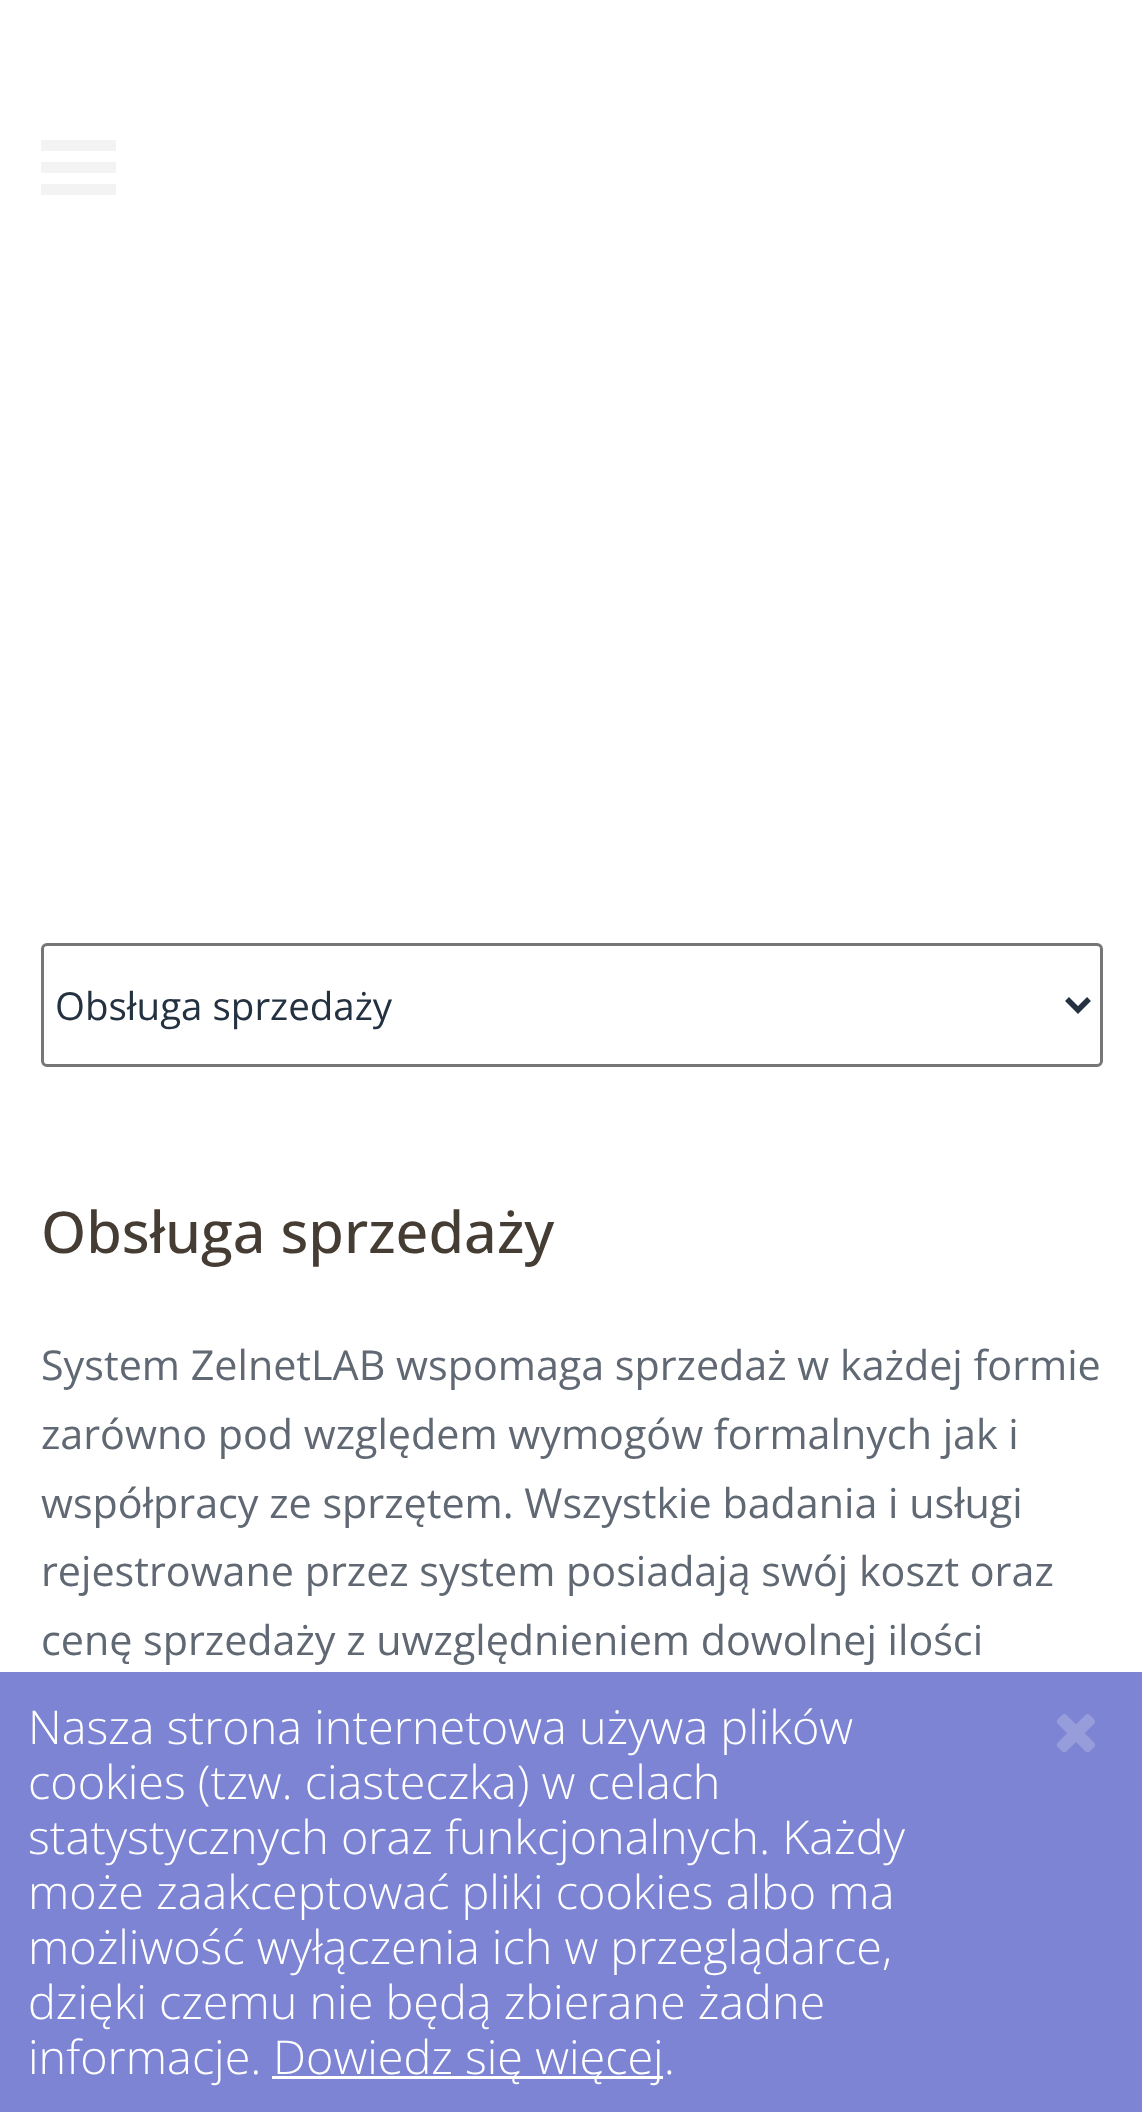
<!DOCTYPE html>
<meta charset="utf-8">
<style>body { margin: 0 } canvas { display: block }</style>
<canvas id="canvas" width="1142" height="2112"></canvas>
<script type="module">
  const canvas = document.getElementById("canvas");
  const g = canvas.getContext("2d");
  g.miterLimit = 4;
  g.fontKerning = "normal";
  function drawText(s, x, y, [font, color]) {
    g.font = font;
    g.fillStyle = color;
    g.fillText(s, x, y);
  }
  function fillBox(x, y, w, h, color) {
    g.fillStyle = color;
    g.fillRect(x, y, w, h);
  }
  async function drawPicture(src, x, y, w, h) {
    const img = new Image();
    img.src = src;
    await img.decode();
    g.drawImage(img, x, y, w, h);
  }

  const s1 = ["38.5px Open Sans", "#233141"];
  const s2 = ["500 57.75px Open Sans", "#453C34"];
  const s3 = ["41.25px Open Sans", "#606873"];
  const s4 = ["300 46.75px Open Sans", "#FFFFFF"];

  fillBox(0, 0, 1142, 2112, "#FFFFFF");
  fillBox(41, 162, 75, 11, "#F3F3F3");
  fillBox(41, 140, 75, 11, "#F3F3F3");
  fillBox(41, 184, 75, 11, "#F3F3F3");
  g.beginPath();
  g.roundRect(42.5, 944.5, 1059, 121, 4.5);
  g.strokeStyle = "#767676";
  g.lineWidth = 3;
  g.stroke();
  g.beginPath();
  g.moveTo(1067, 999);
  g.lineTo(1078, 1010);
  g.lineTo(1089, 999);
  g.strokeStyle = "#233141";
  g.lineWidth = 5.5;
  g.stroke();
  drawText("Obsługa sprzedaży", 55, 1020, s1);
  drawText("Obsługa sprzedaży", 41, 1253, s2);
  drawText("System ZelnetLAB wspomaga sprzedaż w każdej formie", 41, 1380, s3);
  drawText("zarówno pod względem wymogów formalnych jak i", 41, 1449, s3);
  drawText("współpracy ze sprzętem. Wszystkie badania i usługi", 41, 1518, s3);
  drawText("rejestrowane przez system posiadają swój koszt oraz", 41, 1586, s3);
  drawText("cenę sprzedaży z uwzględnieniem dowolnej ilości", 41, 1655, s3);
  fillBox(0, 1672, 1142, 440, "#7D84D3");
  drawText("Nasza strona internetowa używa plików", 28, 1744, s4);
  await drawPicture("pic1.png", 1056, 1714, 39, 39);
  drawText("cookies (tzw. ciasteczka) w celach", 28, 1799, s4);
  drawText("statystycznych oraz funkcjonalnych. Każdy", 28, 1854, s4);
  drawText("może zaakceptować pliki cookies albo ma", 28, 1909, s4);
  drawText("możliwość wyłączenia ich w przeglądarce,", 28, 1964, s4);
  drawText("dzięki czemu nie będą zbierane żadne", 28, 2019, s4);
  drawText("informacje.", 28, 2074, s4);
  fillBox(272, 2076, 391, 3, "#FFFFFF");
  drawText("Dowiedz się więcej.", 273, 2074, s4);
</script>
